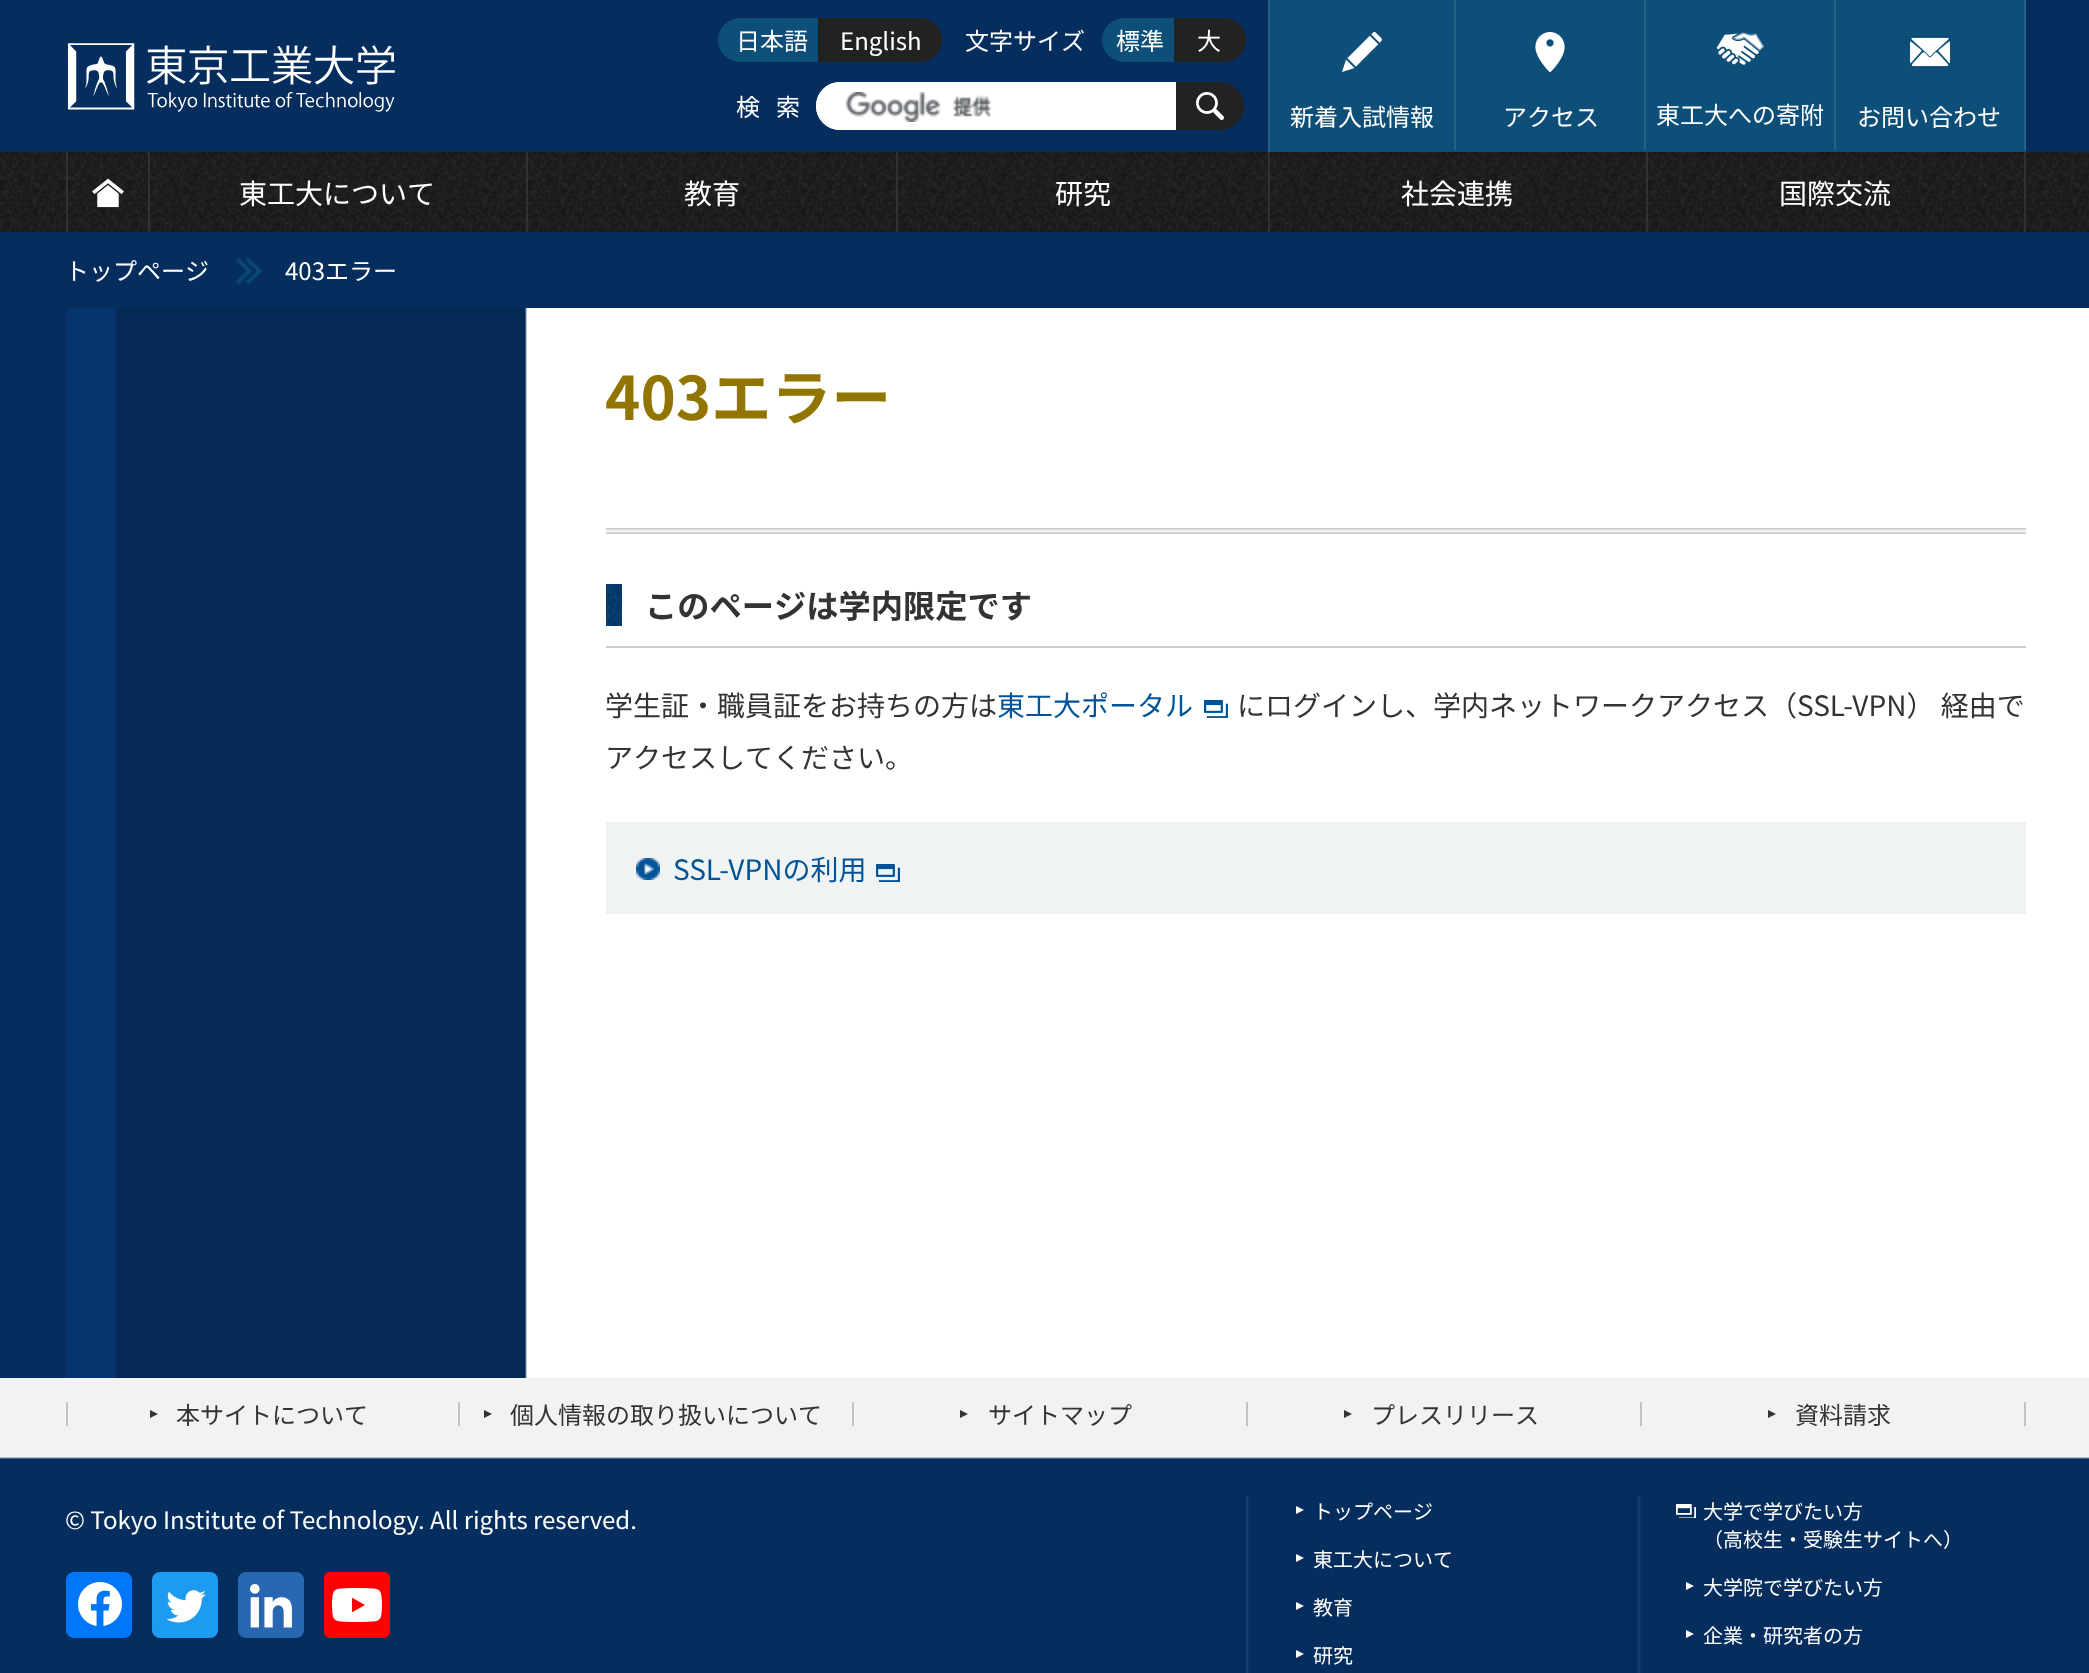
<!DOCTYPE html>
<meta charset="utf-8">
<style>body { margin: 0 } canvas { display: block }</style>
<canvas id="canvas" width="2089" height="1673"></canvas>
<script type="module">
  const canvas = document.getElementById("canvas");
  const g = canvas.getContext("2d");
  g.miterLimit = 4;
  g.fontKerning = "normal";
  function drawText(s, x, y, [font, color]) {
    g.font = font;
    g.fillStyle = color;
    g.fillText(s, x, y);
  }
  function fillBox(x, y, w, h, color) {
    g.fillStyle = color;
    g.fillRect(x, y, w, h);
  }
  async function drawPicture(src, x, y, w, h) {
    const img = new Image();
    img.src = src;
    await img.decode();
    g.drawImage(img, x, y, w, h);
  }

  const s1 = ["24px Noto Sans JP", "#FFFFFF"];
  const s2 = ["28px Noto Sans JP", "#FFFFFF"];
  const s3 = ["bold 60px Noto Sans JP", "#927500"];
  const s4 = ["bold 32.25px Noto Sans JP", "#333333"];
  const s5 = ["28px Noto Sans JP", "#333333"];
  const s6 = ["28px Noto Sans JP", "#005396"];
  const s7 = ["24px Noto Sans JP", "#333333"];
  const s8 = ["20px Noto Sans JP", "#FFFFFF"];

  fillBox(0, 0, 2089, 1673, "#FFFFFF");
  await drawPicture("pic1.png", 0, 308, 66, 1070);
  await drawPicture("pic2.png", 0, 0, 2089, 232);
  g.fillStyle = "#0D4F78";
  g.beginPath();
  g.roundRect(718, 18, 100, 44, [22, 0, 0, 22]);
  g.fill();
  drawText("日本語", 736, 50, s1);
  g.fillStyle = "#222222";
  g.beginPath();
  g.roundRect(818, 18, 124, 44, [0, 22, 22, 0]);
  g.fill();
  drawText("English", 840, 50, s1);
  g.letterSpacing = "16px";
  drawText("検索", 736, 116, s1);
  g.beginPath();
  g.roundRect(816, 82, 360, 48, [24, 0, 0, 24]);
  g.fill();
  await drawPicture("pic3.png", 846, 92, 146, 30);
  g.beginPath();
  g.roundRect(817, 83, 358, 46, [23, 0, 0, 23]);
  g.strokeStyle = "#FFFFFF";
  g.lineWidth = 2;
  g.stroke();
  g.fillStyle = "#222222";
  g.beginPath();
  g.roundRect(1177, 83, 66, 46, [0, 23, 23, 0]);
  g.fill();
  g.strokeStyle = "#222222";
  g.stroke();
  await drawPicture("pic4.png", 1196, 92, 28, 28);
  g.letterSpacing = "0px";
  drawText("文字サイズ", 965, 50, s1);
  g.fillStyle = "#0D4F78";
  g.beginPath();
  g.roundRect(1102, 18, 72, 44, [22, 0, 0, 22]);
  g.fill();
  drawText("標準", 1116, 50, s1);
  g.fillStyle = "#222222";
  g.beginPath();
  g.roundRect(1174, 18, 72, 44, [0, 22, 22, 0]);
  g.fill();
  drawText("大", 1197, 50, s1);
  await drawPicture("pic5.png", 67, 43, 328, 69);
  fillBox(1270, 0, 754, 150, "#0D4F78");
  fillBox(1454, 0, 2, 152, "#266186");
  fillBox(1268, 150, 188, 2, "#0D4F78");
  fillBox(1268, 0, 2, 152, "#266186");
  await drawPicture("pic6.png", 1342, 32, 40, 40);
  drawText("新着入試情報", 1290, 126, s1);
  fillBox(1644, 0, 2, 152, "#266186");
  fillBox(1456, 150, 190, 2, "#0D4F78");
  await drawPicture("pic7.png", 1535, 32, 30, 40);
  drawText("アクセス", 1503, 126, s1);
  fillBox(1834, 0, 2, 152, "#266186");
  fillBox(1646, 150, 190, 2, "#0D4F78");
  await drawPicture("pic8.png", 1716, 32, 48, 33);
  drawText("東工大への寄附", 1656, 124, s1);
  fillBox(2024, 0, 2, 152, "#266186");
  fillBox(1836, 150, 190, 2, "#0D4F78");
  await drawPicture("pic9.png", 1910, 37, 40, 30);
  drawText("お問い合わせ", 1857, 126, s1);
  fillBox(66, 152, 2, 80, "#313131");
  await drawPicture("pic10.png", 68, 152, 80, 80);
  await drawPicture("pic11.png", 92, 178, 32, 30);
  fillBox(148, 152, 2, 80, "#313131");
  await drawPicture("pic12.png", 150, 152, 376, 80);
  drawText("東工大について", 239, 204, s2);
  fillBox(526, 152, 2, 80, "#313131");
  await drawPicture("pic13.png", 528, 152, 368, 80);
  drawText("教育", 684, 204, s2);
  fillBox(896, 152, 2, 80, "#313131");
  await drawPicture("pic14.png", 898, 152, 370, 80);
  drawText("研究", 1055, 204, s2);
  fillBox(1268, 152, 2, 80, "#313131");
  await drawPicture("pic12.png", 1270, 152, 376, 80);
  drawText("社会連携", 1401, 204, s2);
  fillBox(2024, 152, 2, 80, "#313131");
  fillBox(1646, 152, 2, 80, "#313131");
  await drawPicture("pic12.png", 1648, 152, 376, 80);
  drawText("国際交流", 1779, 204, s2);
  fillBox(0, 232, 2089, 76, "#052D5D");
  drawText("トップページ", 65, 280, s1);
  await drawPicture("pic15.png", 236, 258, 26, 26);
  drawText("403エラー", 285, 280, s1);
  await drawPicture("pic16.png", 66, 308, 461, 1070);
  await drawPicture("pic17.png", 606, 528, 1420, 6);
  drawText("403エラー", 605, 420, s3);
  fillBox(606, 646, 1420, 2, "#CCCCCC");
  await drawPicture("pic18.png", 606, 584, 16, 42);
  drawText("このページは学内限定です", 645, 618, s4);
  drawText("学生証・職員証をお持ちの方は", 605, 716, s5);
  drawText("東工大ポータル", 997, 716, s6);
  await drawPicture("pic19.png", 1204, 700, 24, 18);
  drawText("にログインし、学内ネットワークアクセス（SSL-VPN） 経由で", 1237, 716, s5);
  drawText("アクセスしてください。", 605, 768, s5);
  fillBox(606, 822, 1420, 92, "#EFF3F4");
  await drawPicture("pic20.png", 636, 858, 24, 22);
  drawText("SSL-VPNの利用", 673, 880, s6);
  await drawPicture("pic21.png", 876, 864, 24, 18);
  fillBox(0, 1459, 2089, 214, "#052D5D");
  await drawPicture("pic22.png", 0, 1378, 2089, 81);
  fillBox(66, 1402, 2, 24, "#C3C3C3");
  fillBox(458, 1402, 2, 24, "#C3C3C3");
  g.fillStyle = "#333333";
  g.beginPath();
  g.moveTo(150, 1418);
  g.lineTo(150, 1410);
  g.lineTo(158, 1414);
  g.closePath();
  g.fill();
  drawText("本サイトについて", 176, 1424, s7);
  fillBox(852, 1402, 2, 24, "#C3C3C3");
  g.fillStyle = "#333333";
  g.beginPath();
  g.moveTo(484, 1418);
  g.lineTo(484, 1410);
  g.lineTo(492, 1414);
  g.closePath();
  g.fill();
  drawText("個人情報の取り扱いについて", 510, 1424, s7);
  fillBox(1246, 1402, 2, 24, "#C3C3C3");
  g.fillStyle = "#333333";
  g.beginPath();
  g.moveTo(960, 1418);
  g.lineTo(960, 1410);
  g.lineTo(968, 1414);
  g.closePath();
  g.fill();
  drawText("サイトマップ", 988, 1424, s7);
  fillBox(1640, 1402, 2, 24, "#C3C3C3");
  g.fillStyle = "#333333";
  g.beginPath();
  g.moveTo(1344, 1418);
  g.lineTo(1344, 1410);
  g.lineTo(1352, 1414);
  g.closePath();
  g.fill();
  drawText("プレスリリース", 1371, 1424, s7);
  fillBox(2024, 1402, 2, 24, "#C3C3C3");
  g.fillStyle = "#333333";
  g.beginPath();
  g.moveTo(1768, 1418);
  g.lineTo(1768, 1410);
  g.lineTo(1776, 1414);
  g.closePath();
  g.fill();
  drawText("資料請求", 1795, 1424, s7);
  drawText("© Tokyo Institute of Technology. All rights reserved.", 65, 1529, s1);
  await drawPicture("pic23.png", 66, 1572, 66, 66);
  await drawPicture("pic24.png", 152, 1572, 66, 66);
  await drawPicture("pic25.png", 238, 1572, 66, 66);
  await drawPicture("pic26.png", 324, 1572, 66, 66);
  await drawPicture("pic27.png", 1246, 1496, 395, 177);
  g.beginPath();
  g.moveTo(1296, 1514);
  g.lineTo(1296, 1506);
  g.lineTo(1304, 1510);
  g.closePath();
  g.fill();
  drawText("トップページ", 1313, 1519, s8);
  g.beginPath();
  g.moveTo(1296, 1562);
  g.lineTo(1296, 1554);
  g.lineTo(1304, 1558);
  g.closePath();
  g.fill();
  drawText("東工大について", 1313, 1567, s8);
  g.beginPath();
  g.moveTo(1296, 1610);
  g.lineTo(1296, 1602);
  g.lineTo(1304, 1606);
  g.closePath();
  g.fill();
  drawText("教育", 1313, 1615, s8);
  g.beginPath();
  g.moveTo(1296, 1658);
  g.lineTo(1296, 1650);
  g.lineTo(1304, 1654);
  g.closePath();
  g.fill();
  drawText("研究", 1313, 1663, s8);
  await drawPicture("pic28.png", 1676, 1504, 20, 14);
  drawText("大学で学びたい方", 1703, 1519, s8);
  drawText("（高校生・受験生サイトへ）", 1703, 1547, s8);
  g.beginPath();
  g.moveTo(1686, 1590);
  g.lineTo(1686, 1582);
  g.lineTo(1694, 1586);
  g.closePath();
  g.fill();
  drawText("大学院で学びたい方", 1703, 1595, s8);
  g.beginPath();
  g.moveTo(1686, 1638);
  g.lineTo(1686, 1630);
  g.lineTo(1694, 1634);
  g.closePath();
  g.fill();
  drawText("企業・研究者の方", 1703, 1643, s8);
</script>
